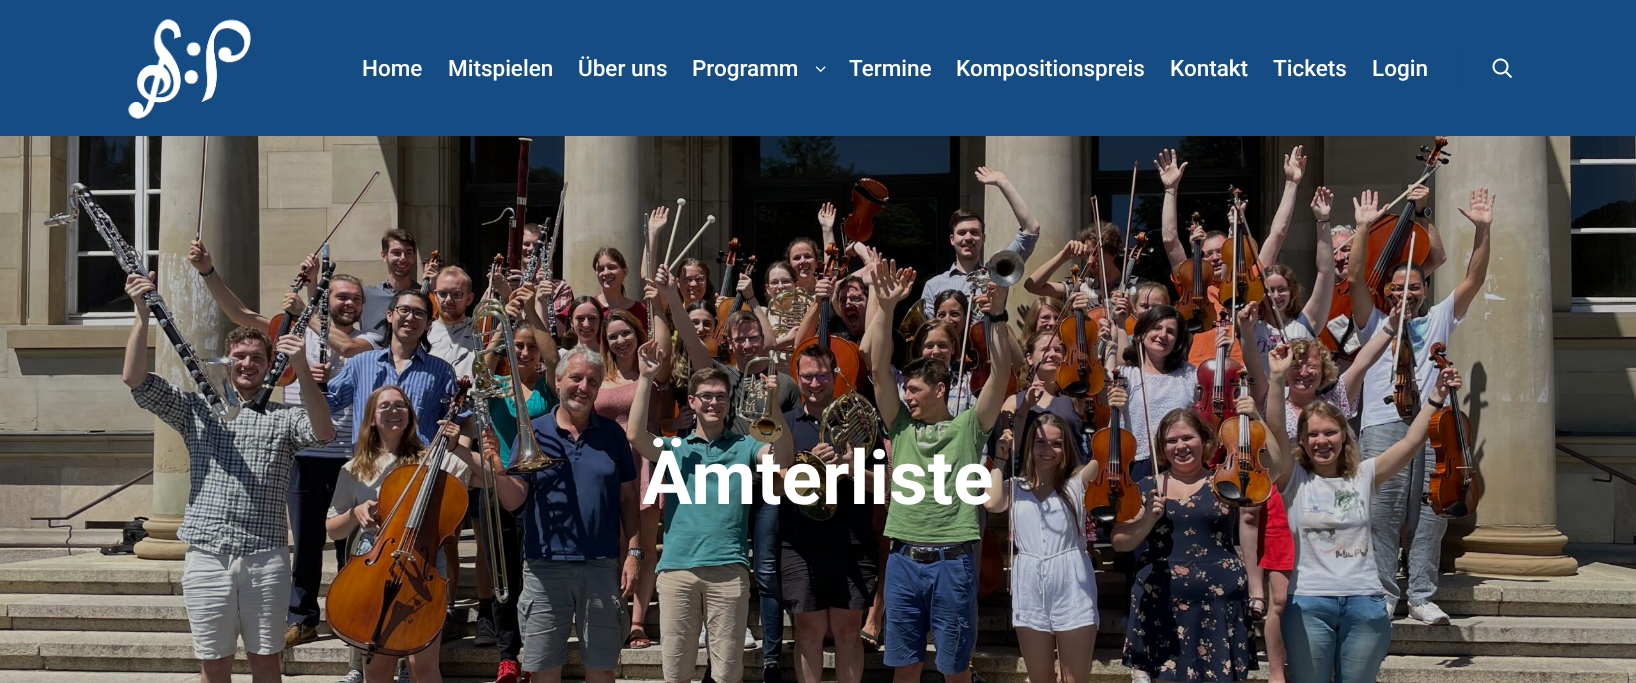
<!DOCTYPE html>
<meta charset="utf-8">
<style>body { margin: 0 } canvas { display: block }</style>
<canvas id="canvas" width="1636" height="683"></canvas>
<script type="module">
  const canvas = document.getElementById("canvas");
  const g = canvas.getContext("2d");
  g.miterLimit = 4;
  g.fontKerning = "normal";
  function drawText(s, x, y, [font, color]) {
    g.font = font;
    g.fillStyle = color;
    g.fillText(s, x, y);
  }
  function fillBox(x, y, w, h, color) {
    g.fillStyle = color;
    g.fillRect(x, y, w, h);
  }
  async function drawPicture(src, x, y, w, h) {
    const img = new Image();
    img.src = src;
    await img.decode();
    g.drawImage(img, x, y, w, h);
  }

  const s1 = ["500 22.5px Roboto", "#FFFFFF"];
  const s2 = ["bold 75px Roboto", "#FFFFFF"];

  fillBox(0, 0, 1636, 683, "#FFFFFF");
  fillBox(0, 0, 1636, 136, "#144C83");
  await drawPicture("pic1.png", 128, 19, 123, 100);
  drawText("Home", 362, 76, s1);
  drawText("Mitspielen", 448, 76, s1);
  drawText("Über uns", 578, 76, s1);
  drawText("Programm", 692, 76, s1);
  await drawPicture("pic2.png", 815, 66, 11, 6);
  drawText("Termine", 849, 76, s1);
  drawText("Kompositionspreis", 956, 76, s1);
  drawText("Kontakt", 1170, 76, s1);
  drawText("Tickets", 1273, 76, s1);
  drawText("Login", 1372, 76, s1);
  fillBox(1460, 53, 1, 31, "#164B7F");
  await drawPicture("pic3.png", 1492, 58, 21, 21);
  await drawPicture("pic4.png", 0, 136, 1636, 547);
  drawText("Ämterliste", 642, 504, s2);
</script>
